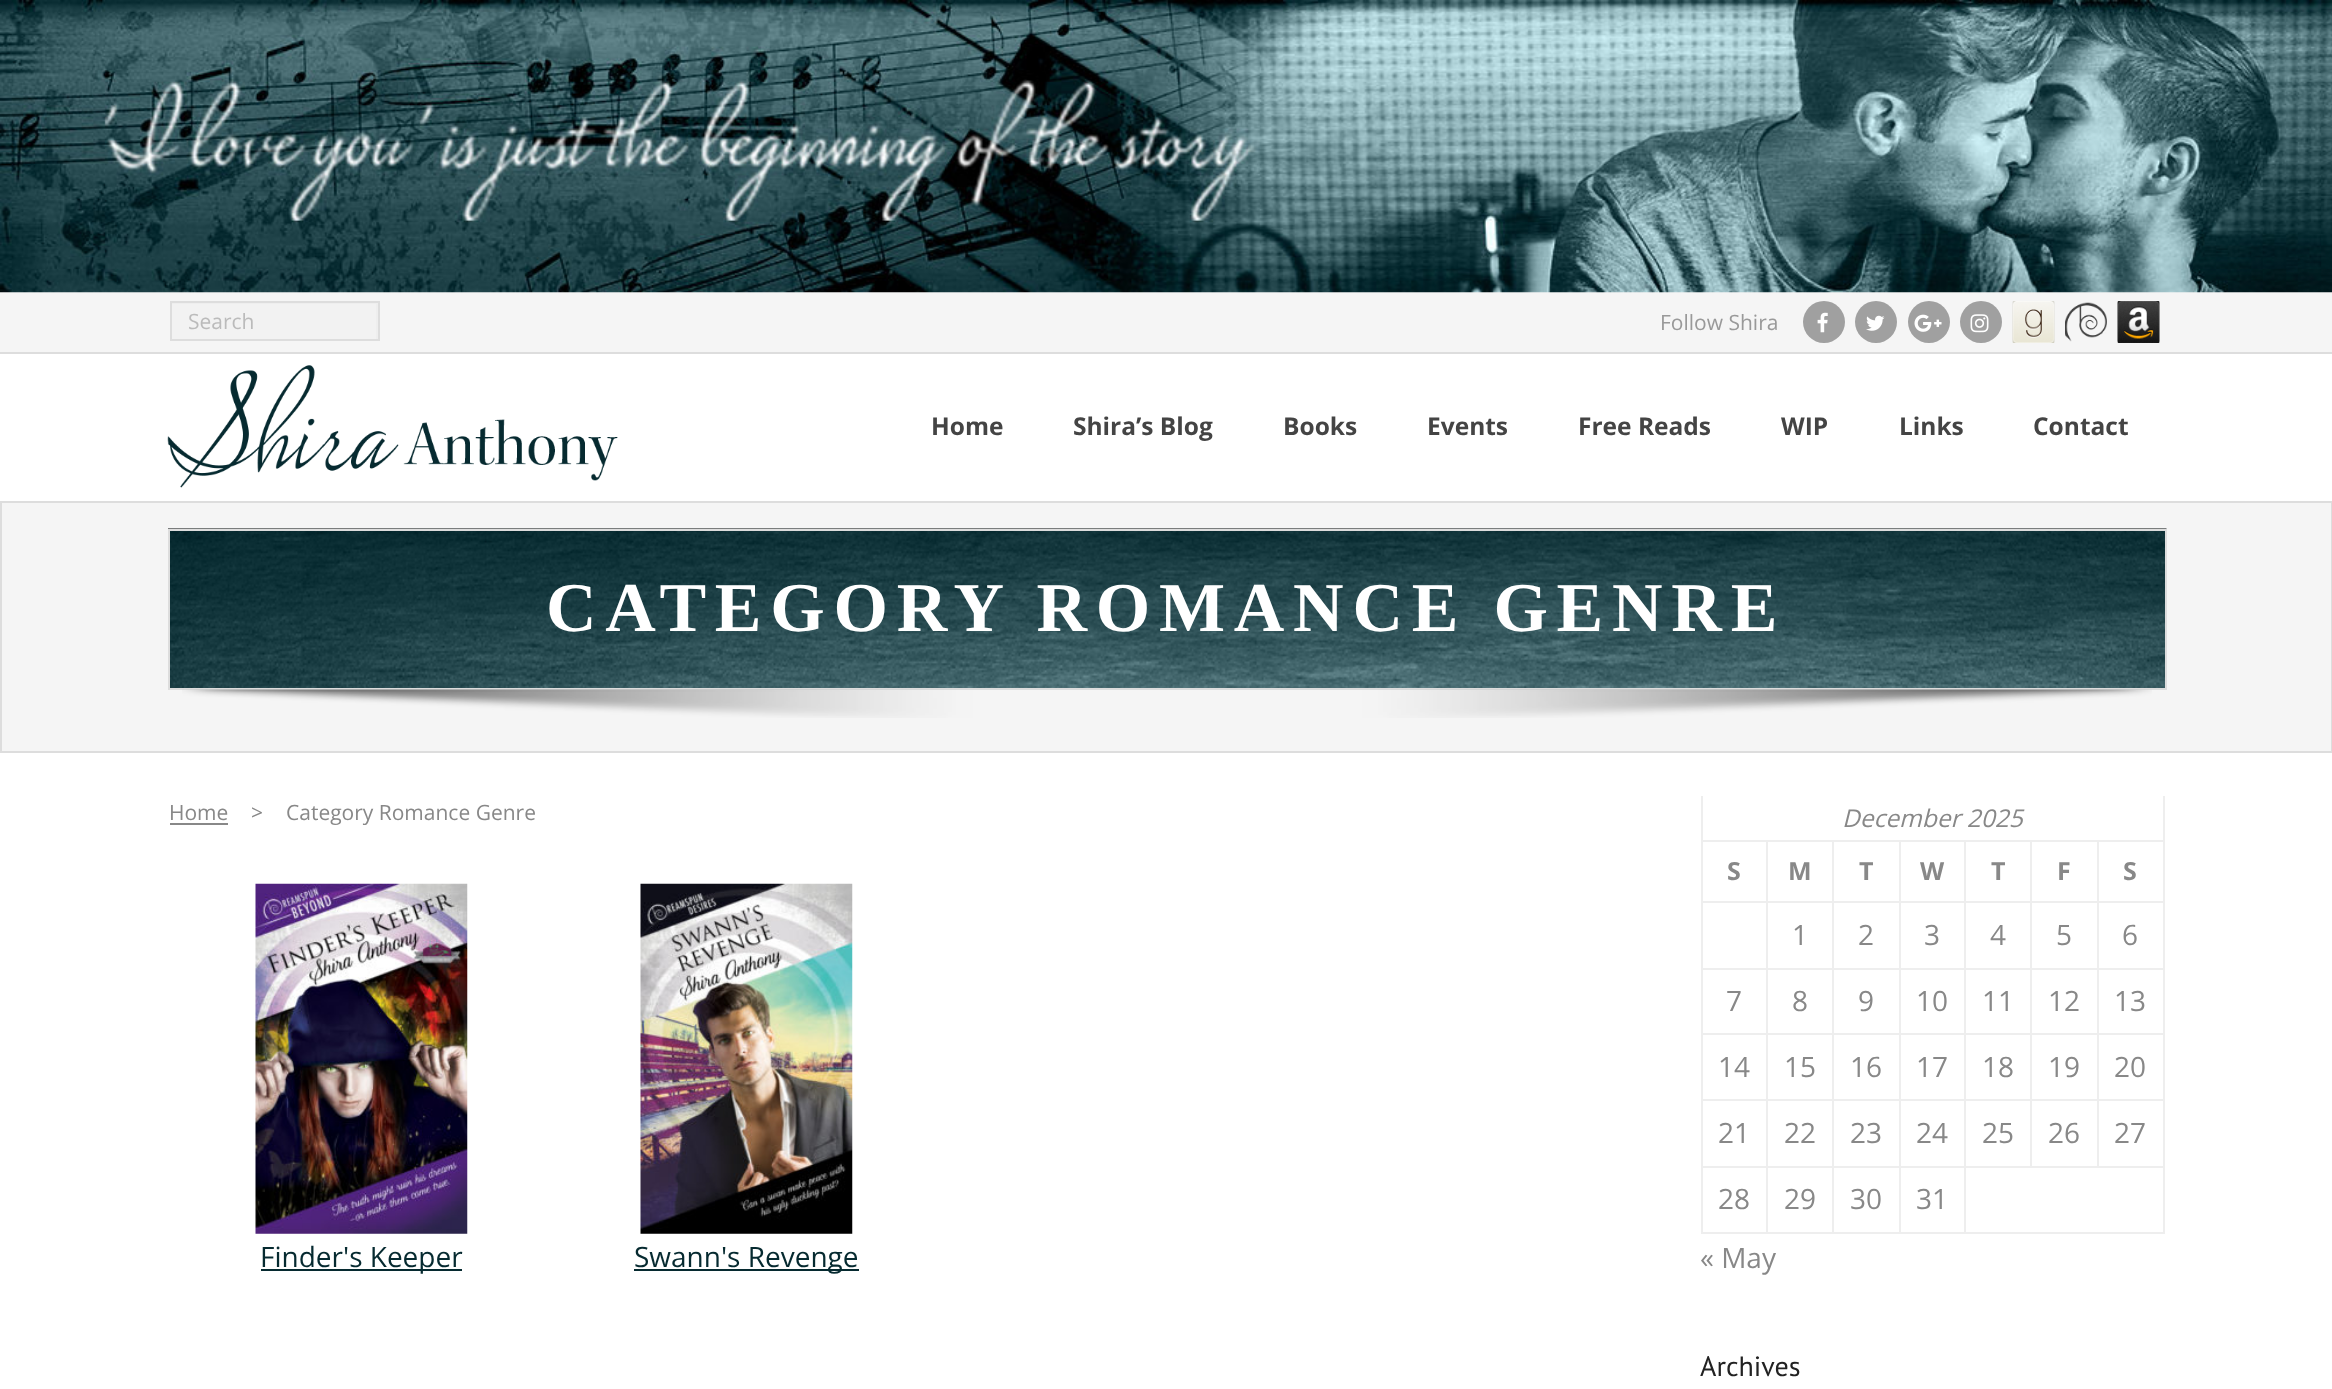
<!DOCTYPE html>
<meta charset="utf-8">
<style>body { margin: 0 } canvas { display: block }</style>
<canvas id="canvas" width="2332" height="1389"></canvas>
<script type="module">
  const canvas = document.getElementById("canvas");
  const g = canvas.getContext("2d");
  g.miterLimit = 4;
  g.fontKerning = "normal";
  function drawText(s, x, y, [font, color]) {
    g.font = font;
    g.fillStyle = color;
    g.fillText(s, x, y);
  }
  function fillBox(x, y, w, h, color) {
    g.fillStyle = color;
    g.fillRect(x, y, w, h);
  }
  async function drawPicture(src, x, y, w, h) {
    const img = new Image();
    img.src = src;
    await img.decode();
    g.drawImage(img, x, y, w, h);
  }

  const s1 = ["21px Open Sans", "#BBBBBB"];
  const s2 = ["21px Open Sans", "#999999"];
  const s3 = ["bold 24.5px Open Sans", "#444444"];
  const s4 = ["bold 70px Liberation Serif", "#FFFFFF"];
  const s5 = ["21px Open Sans", "#888888"];
  const s6 = ["28px Open Sans", "#062A30"];
  const s7 = ["italic 24.5px Open Sans", "#888888"];
  const s8 = ["bold 25px Open Sans", "#888888"];
  const s9 = ["28px Open Sans", "#888888"];
  const s10 = ["28px PT Sans", "#222222"];

  fillBox(0, 0, 2332, 1389, "#FFFFFF");
  fillBox(2331, 502, 1, 251, "#DDDDDD");
  fillBox(0, 751, 2332, 2, "#DDDDDD");
  fillBox(0, 502, 2, 251, "#DDDDDD");
  fillBox(0, 501, 2332, 2, "#DDDDDD");
  fillBox(0, 292, 2332, 60, "#F5F5F5");
  await drawPicture("pic1.png", 0, 0, 2332, 293);
  fillBox(0, 352, 2332, 2, "#DDDDDD");
  fillBox(172, 304, 204, 35, "#F2F2F2");
  g.save();
  g.beginPath();
  g.rect(172, 303, 206, 37);
  g.clip();
  g.fillStyle = "#EEEEEE";
  g.beginPath();
  g.moveTo(-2, 130);
  g.lineTo(551, 130);
  g.lineTo(551, 513);
  g.lineTo(-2, 513);
  g.closePath();
  g.moveTo(170, 304);
  g.lineTo(376, 304);
  g.lineTo(376, 341);
  g.lineTo(170, 341);
  g.closePath();
  g.fill("evenodd");
  g.restore();
  g.strokeStyle = "#DDDDDD";
  g.lineWidth = 2;
  g.strokeRect(171, 302, 208, 38);
  drawText("Search", 188, 329, s1);
  drawText("Follow Shira", 1660, 330, s2);
  g.fillStyle = "#A0A0A0";
  g.beginPath();
  g.arc(1824, 322, 21, 0, Math.PI * 2);
  g.fill();
  await drawPicture("pic2.png", 1817, 312, 11, 21);
  g.beginPath();
  g.arc(1876, 322, 21, 0, Math.PI * 2);
  g.fill();
  await drawPicture("pic3.png", 1866, 315, 19, 16);
  g.beginPath();
  g.arc(1929, 322, 21, 0, Math.PI * 2);
  g.fill();
  await drawPicture("pic4.png", 1914, 314, 28, 18);
  g.beginPath();
  g.arc(1981, 322, 21, 0, Math.PI * 2);
  g.fill();
  await drawPicture("pic5.png", 1970, 314, 19, 19);
  await drawPicture("pic6.png", 2012, 301, 43, 42);
  await drawPicture("pic7.png", 2065, 302, 42, 40);
  await drawPicture("pic8.png", 2117, 301, 43, 42);
  await drawPicture("pic9.png", 167, 365, 451, 123);
  drawText("Home", 931, 435, s3);
  drawText("Shira’s Blog", 1073, 435, s3);
  drawText("Books", 1283, 435, s3);
  drawText("Events", 1427, 435, s3);
  drawText("Free Reads", 1578, 435, s3);
  drawText("WIP", 1781, 435, s3);
  drawText("Links", 1899, 435, s3);
  drawText("Contact", 2033, 435, s3);
  fillBox(2, 503, 2329, 248, "#F5F5F5");
  await drawPicture("pic10.png", 168, 528, 1999, 160);
  g.strokeRect(169, 530, 1997, 159);
  g.letterSpacing = "8.75px";
  drawText("CATEGORY ROMANCE GENRE", 546, 631, s4);
  await drawPicture("pic11.png", 182, 689, 1970, 29);
  g.letterSpacing = "0px";
  drawText("Home", 169, 820, s5);
  fillBox(170, 823, 58, 2, "#888888");
  drawText(">", 251, 820, s5);
  drawText("Category Romance Genre", 286, 820, s5);
  await drawPicture("pic12.png", 255, 883, 213, 351);
  fillBox(261, 1269, 201, 2, "#062A30");
  drawText("Finder's Keeper", 260, 1267, s6);
  await drawPicture("pic13.png", 640, 883, 213, 351);
  fillBox(634, 1269, 225, 2, "#062A30");
  drawText("Swann's Revenge", 634, 1267, s6);
  fillBox(2163, 796, 2, 438, "#EEEEEE");
  fillBox(1701, 796, 2, 438, "#EEEEEE");
  drawText("December 2025", 1842, 827, s7);
  fillBox(1701, 840, 464, 2, "#EEEEEE");
  fillBox(2097, 1166, 68, 2, "#EEEEEE");
  fillBox(2097, 1099, 2, 68, "#EEEEEE");
  fillBox(2097, 1099, 68, 2, "#EEEEEE");
  fillBox(2097, 1033, 2, 68, "#EEEEEE");
  fillBox(2097, 1033, 68, 2, "#EEEEEE");
  fillBox(2097, 968, 2, 66, "#EEEEEE");
  fillBox(2097, 968, 68, 2, "#EEEEEE");
  fillBox(2097, 901, 2, 69, "#EEEEEE");
  fillBox(2097, 901, 68, 2, "#EEEEEE");
  fillBox(2097, 840, 2, 63, "#EEEEEE");
  fillBox(2030, 1166, 68, 2, "#EEEEEE");
  fillBox(2030, 1099, 2, 68, "#EEEEEE");
  fillBox(2030, 1099, 68, 2, "#EEEEEE");
  fillBox(2030, 1033, 2, 68, "#EEEEEE");
  fillBox(2030, 1033, 68, 2, "#EEEEEE");
  fillBox(2030, 968, 2, 66, "#EEEEEE");
  fillBox(2030, 968, 68, 2, "#EEEEEE");
  fillBox(2030, 901, 2, 69, "#EEEEEE");
  fillBox(2030, 901, 68, 2, "#EEEEEE");
  fillBox(2030, 840, 2, 63, "#EEEEEE");
  fillBox(1964, 1232, 201, 2, "#EEEEEE");
  fillBox(1964, 1166, 2, 68, "#EEEEEE");
  fillBox(1964, 1166, 68, 2, "#EEEEEE");
  fillBox(1964, 1099, 2, 68, "#EEEEEE");
  fillBox(1964, 1099, 68, 2, "#EEEEEE");
  fillBox(1964, 1033, 2, 68, "#EEEEEE");
  fillBox(1964, 1033, 68, 2, "#EEEEEE");
  fillBox(1964, 968, 2, 66, "#EEEEEE");
  fillBox(1964, 968, 68, 2, "#EEEEEE");
  fillBox(1964, 901, 2, 69, "#EEEEEE");
  fillBox(1964, 901, 68, 2, "#EEEEEE");
  fillBox(1964, 840, 2, 63, "#EEEEEE");
  fillBox(1899, 1232, 66, 2, "#EEEEEE");
  fillBox(1899, 1166, 2, 68, "#EEEEEE");
  fillBox(1899, 1166, 66, 2, "#EEEEEE");
  fillBox(1899, 1099, 2, 68, "#EEEEEE");
  fillBox(1899, 1099, 66, 2, "#EEEEEE");
  fillBox(1899, 1033, 2, 68, "#EEEEEE");
  fillBox(1899, 1033, 66, 2, "#EEEEEE");
  fillBox(1899, 968, 2, 66, "#EEEEEE");
  fillBox(1899, 968, 66, 2, "#EEEEEE");
  fillBox(1899, 901, 2, 69, "#EEEEEE");
  fillBox(1899, 901, 66, 2, "#EEEEEE");
  fillBox(1899, 840, 2, 63, "#EEEEEE");
  fillBox(1832, 1232, 69, 2, "#EEEEEE");
  fillBox(1832, 1166, 2, 68, "#EEEEEE");
  fillBox(1832, 1166, 69, 2, "#EEEEEE");
  fillBox(1832, 1099, 2, 68, "#EEEEEE");
  fillBox(1832, 1099, 69, 2, "#EEEEEE");
  fillBox(1832, 1033, 2, 68, "#EEEEEE");
  fillBox(1832, 1033, 69, 2, "#EEEEEE");
  fillBox(1832, 968, 2, 66, "#EEEEEE");
  fillBox(1832, 968, 69, 2, "#EEEEEE");
  fillBox(1832, 901, 2, 69, "#EEEEEE");
  fillBox(1832, 901, 69, 2, "#EEEEEE");
  fillBox(1832, 840, 2, 63, "#EEEEEE");
  fillBox(1766, 1232, 68, 2, "#EEEEEE");
  fillBox(1766, 1166, 2, 68, "#EEEEEE");
  fillBox(1766, 1166, 68, 2, "#EEEEEE");
  fillBox(1766, 1099, 2, 68, "#EEEEEE");
  fillBox(1766, 1099, 68, 2, "#EEEEEE");
  fillBox(1766, 1033, 2, 68, "#EEEEEE");
  fillBox(1766, 1033, 68, 2, "#EEEEEE");
  fillBox(1766, 968, 2, 66, "#EEEEEE");
  fillBox(1766, 968, 68, 2, "#EEEEEE");
  fillBox(1766, 901, 2, 69, "#EEEEEE");
  fillBox(1766, 901, 68, 2, "#EEEEEE");
  fillBox(1766, 840, 2, 63, "#EEEEEE");
  fillBox(1701, 901, 67, 2, "#EEEEEE");
  drawText("S", 1727, 880, s8);
  drawText("M", 1788, 880, s8);
  drawText("T", 1859, 880, s8);
  drawText("W", 1920, 880, s8);
  drawText("T", 1991, 880, s8);
  drawText("F", 2057, 880, s8);
  drawText("S", 2123, 880, s8);
  fillBox(1701, 968, 67, 2, "#EEEEEE");
  drawText("1", 1792, 945, s9);
  drawText("2", 1858, 945, s9);
  drawText("3", 1924, 945, s9);
  drawText("4", 1990, 945, s9);
  drawText("5", 2056, 945, s9);
  drawText("6", 2122, 945, s9);
  fillBox(1701, 1033, 67, 2, "#EEEEEE");
  drawText("7", 1726, 1011, s9);
  drawText("8", 1792, 1011, s9);
  drawText("9", 1858, 1011, s9);
  drawText("10", 1916, 1011, s9);
  drawText("11", 1982, 1011, s9);
  drawText("12", 2048, 1011, s9);
  drawText("13", 2114, 1011, s9);
  fillBox(1701, 1099, 67, 2, "#EEEEEE");
  drawText("14", 1718, 1077, s9);
  drawText("15", 1784, 1077, s9);
  drawText("16", 1850, 1077, s9);
  drawText("17", 1916, 1077, s9);
  drawText("18", 1982, 1077, s9);
  drawText("19", 2048, 1077, s9);
  drawText("20", 2114, 1077, s9);
  fillBox(1701, 1166, 67, 2, "#EEEEEE");
  drawText("21", 1718, 1143, s9);
  drawText("22", 1784, 1143, s9);
  drawText("23", 1850, 1143, s9);
  drawText("24", 1916, 1143, s9);
  drawText("25", 1982, 1143, s9);
  drawText("26", 2048, 1143, s9);
  drawText("27", 2114, 1143, s9);
  fillBox(1701, 1232, 67, 2, "#EEEEEE");
  drawText("28", 1718, 1209, s9);
  drawText("29", 1784, 1209, s9);
  drawText("30", 1850, 1209, s9);
  drawText("31", 1916, 1209, s9);
  drawText("« May", 1700, 1268, s9);
  drawText("Archives", 1700, 1376, s10);
</script>
